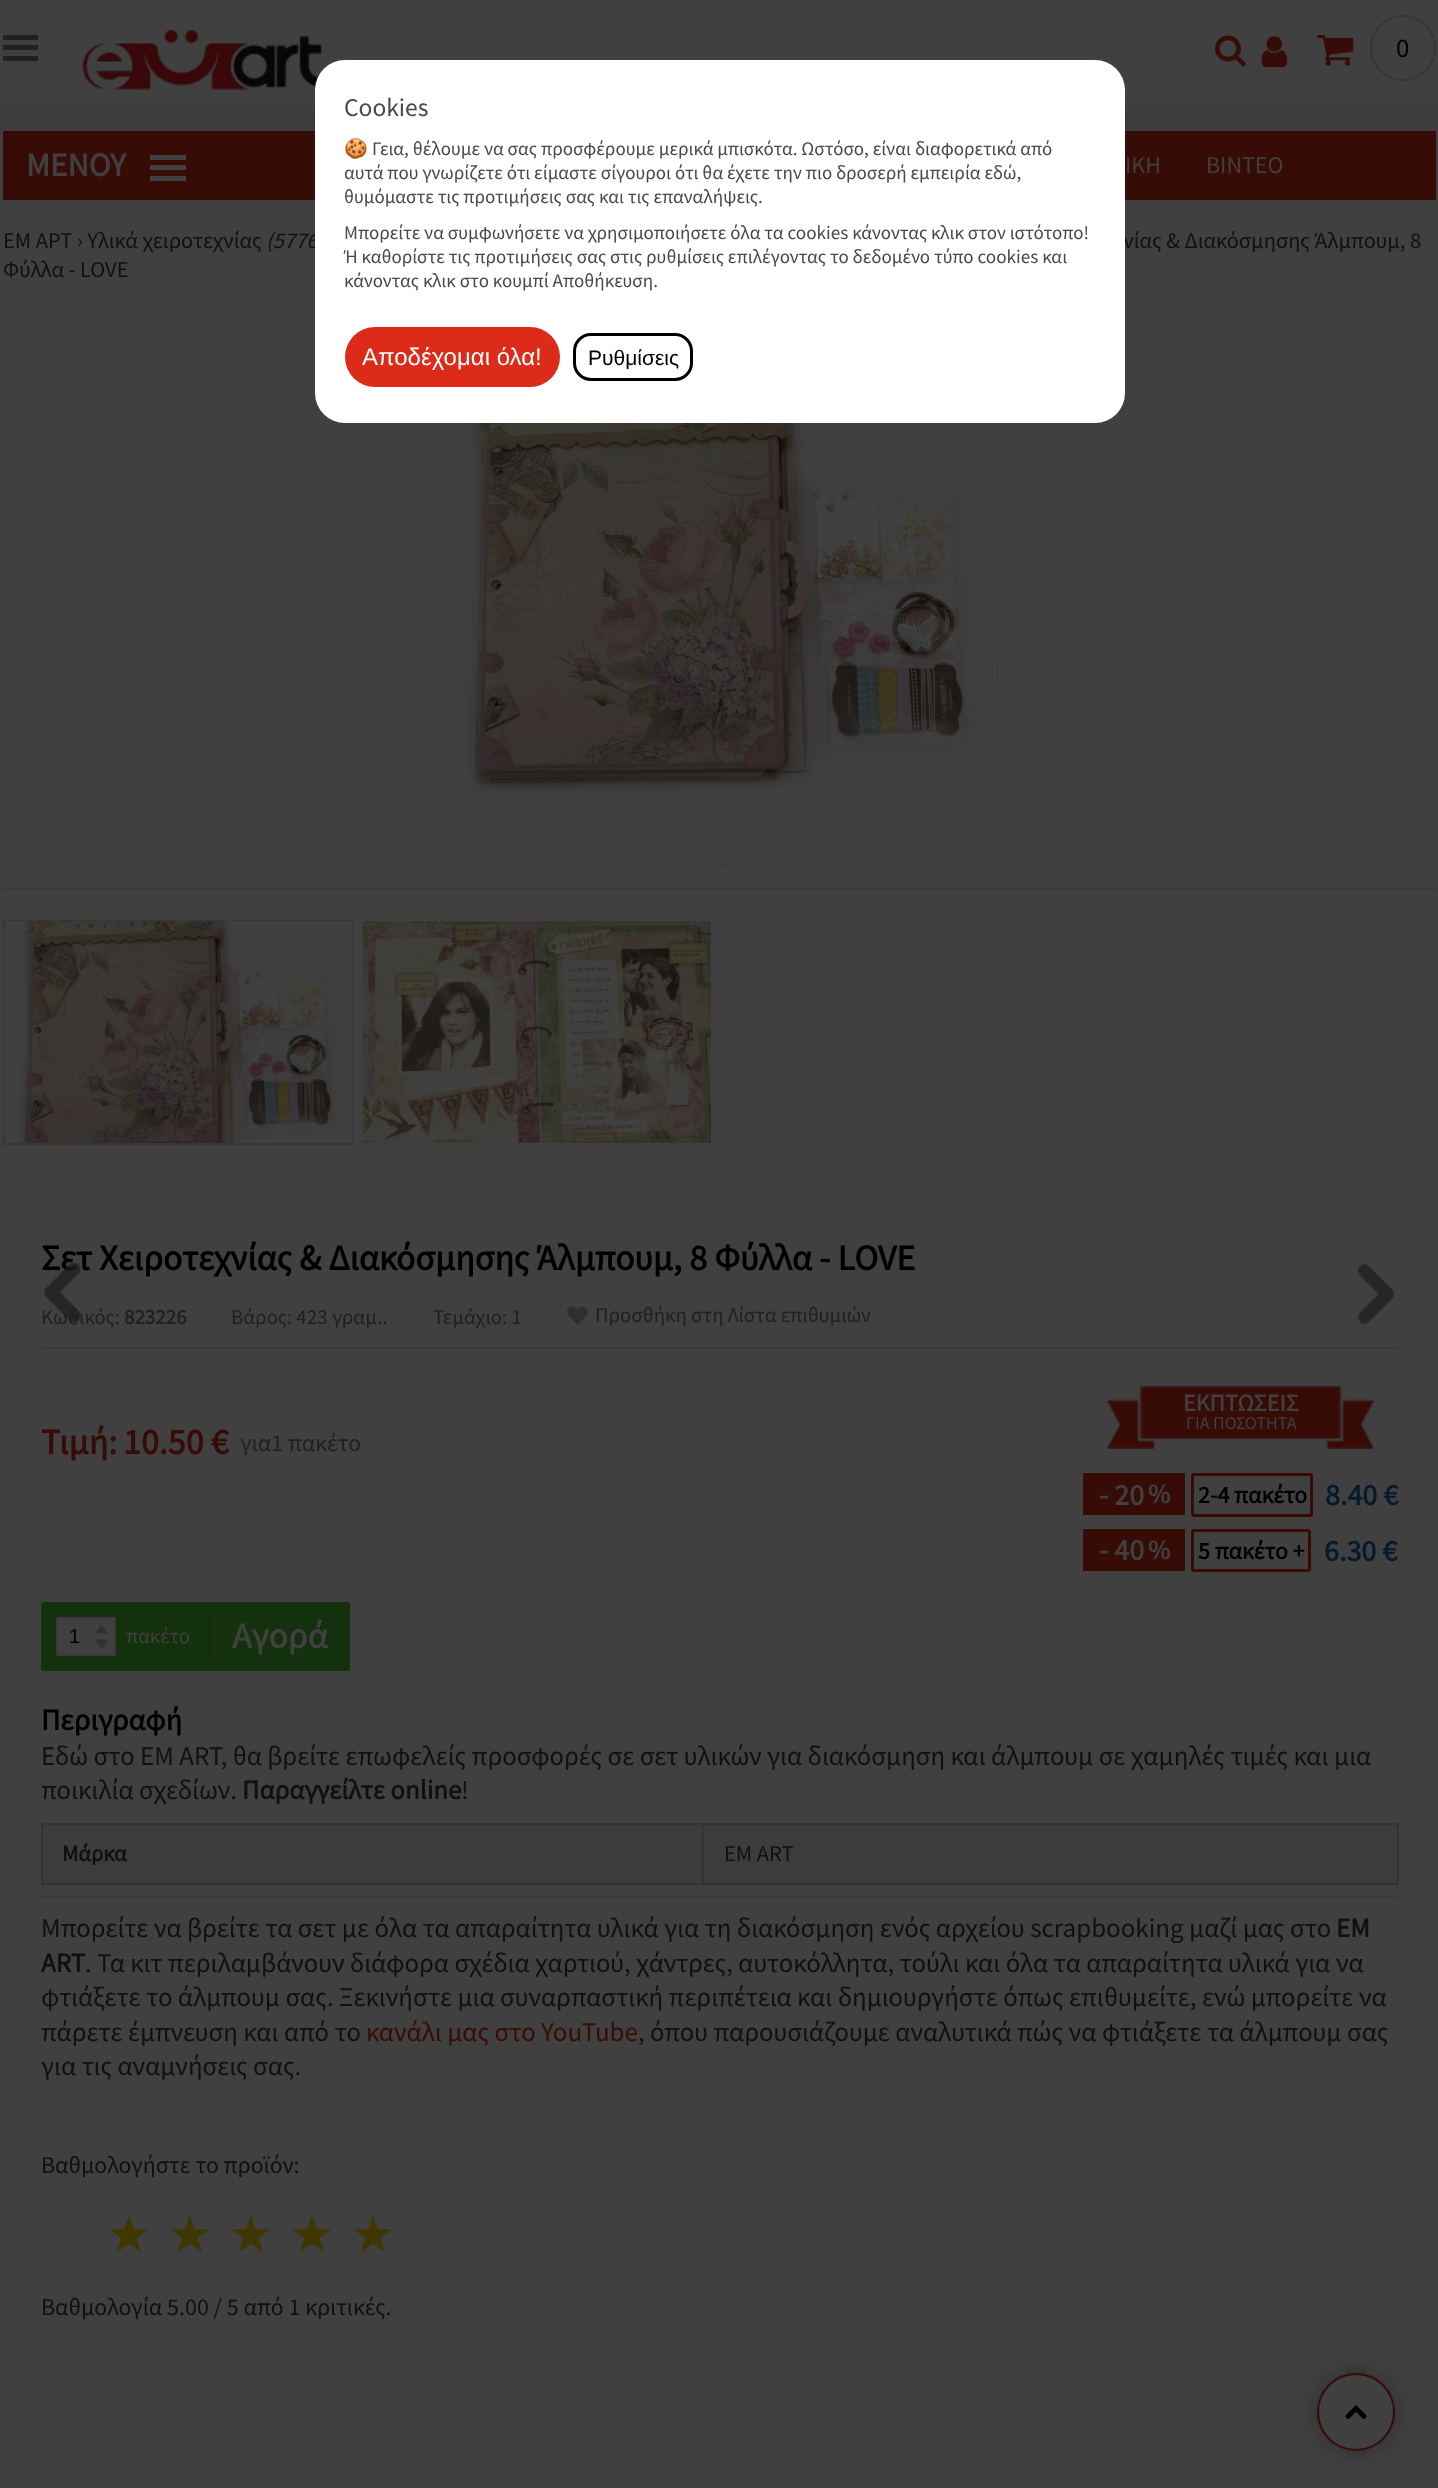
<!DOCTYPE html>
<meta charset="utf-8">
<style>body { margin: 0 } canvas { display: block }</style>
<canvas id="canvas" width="1438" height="2488"></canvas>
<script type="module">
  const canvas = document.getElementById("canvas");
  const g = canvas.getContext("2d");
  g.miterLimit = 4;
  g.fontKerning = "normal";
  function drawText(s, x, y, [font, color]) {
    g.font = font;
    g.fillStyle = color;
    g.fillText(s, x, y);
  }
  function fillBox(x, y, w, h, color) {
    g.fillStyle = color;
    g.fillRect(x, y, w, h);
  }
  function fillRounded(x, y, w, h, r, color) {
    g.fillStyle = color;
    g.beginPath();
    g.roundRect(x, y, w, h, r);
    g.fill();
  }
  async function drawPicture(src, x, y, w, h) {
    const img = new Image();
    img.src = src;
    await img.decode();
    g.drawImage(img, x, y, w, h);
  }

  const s1 = ["27px Source Sans Pro", "#000000"];
  const s2 = ["italic 22.5px Source Sans Pro", "#101010"];
  const s3 = ["22.5px Source Sans Pro", "#101010"];
  const s4 = ["25.5px Source Sans Pro", "#484848"];
  const s5 = ["19.2px Noto Color Emoji", "#484848"];
  const s6 = ["19.2px Source Sans Pro", "#484848"];
  const s7 = ["24px Liberation Sans", "#FFFFFF"];
  const s8 = ["21px Liberation Sans", "#000000"];
  const s9 = ["bold 33px Source Sans Pro", "#404040"];
  const s10 = ["24px Source Sans Pro", "#404040"];
  const s11 = ["bold 36px Source Sans Pro", "#000000"];
  const s12 = ["21px Source Sans Pro", "#202020"];
  const s13 = ["bold 21px Source Sans Pro", "#202020"];
  const s14 = ["bold 36px Source Sans Pro", "#370B06"];
  const s15 = ["24px Source Sans Pro", "#202020"];
  const s16 = ["bold 24px Source Sans Pro", "#404040"];
  const s17 = ["18px Source Sans Pro", "#404040"];
  const s18 = ["bold 30px Source Sans Pro", "#404040"];
  const s19 = ["bold 27px Source Sans Pro", "#404040"];
  const s20 = ["bold 24px Source Sans Pro", "#000000"];
  const s21 = ["bold 30px Source Sans Pro", "#061A2E"];
  const s22 = ["20px Liberation Sans", "#000000"];
  const s23 = ["21px Source Sans Pro", "#404040"];
  const s24 = ["bold 36px Source Sans Pro", "#404040"];
  const s25 = ["bold 30px Source Sans Pro", "#000000"];
  const s26 = ["27px Source Sans Pro", "#101010"];
  const s27 = ["bold 27px Source Sans Pro", "#101010"];
  const s28 = ["bold 22.5px Source Sans Pro", "#101010"];
  const s29 = ["27px Source Sans Pro", "#370B06"];
  const s30 = ["24px Source Sans Pro", "#101010"];
  const s31 = ["51px DejaVu Sans", "#403600"];

  fillBox(0, 0, 1438, 2488, "#404040");
  fillBox(3, 45, 35, 5, "#202020");
  fillBox(3, 35, 35, 5, "#202020");
  fillBox(3, 56, 35, 5, "#202020");
  await drawPicture("pic1.png", 82, 30, 241, 60);
  await drawPicture("pic2.png", 1215, 35, 31, 32);
  await drawPicture("pic3.png", 1261, 36, 27, 32);
  await drawPicture("pic4.png", 1317, 35, 37, 31);
  g.beginPath();
  g.arc(1403, 48, 32, 0, Math.PI * 2);
  g.strokeStyle = "#373737";
  g.lineWidth = 2;
  g.stroke();
  drawText("0", 1396, 57, s1);
  fillBox(0, 105, 1438, 26, "#3C3C3C");
  fillBox(3, 131, 1433, 69, "#370B06");
  drawText("(5776", 266, 248, s2);
  drawText("νίας & Διακόσμησης Άλμπουμ, 8", 1123, 248, s3);
  fillRounded(315, 60, 810, 363, 30, "#FFFFFF");
  drawText("Cookies", 344, 116, s4);
  drawText("🍪", 344, 155, s5);
  drawText("Γεια, θέλουμε να σας προσφέρουμε μερικά μπισκότα. Ωστόσο, είναι διαφορετικά από", 372, 155, s6);
  drawText("αυτά που γνωρίζετε ότι είμαστε σίγουροι ότι θα έχετε την πιο δροσερή εμπειρία εδώ,", 344, 179, s6);
  drawText("θυμόμαστε τις προτιμήσεις σας και τις επαναλήψεις.", 344, 203, s6);
  drawText("Μπορείτε να συμφωνήσετε να χρησιμοποιήσετε όλα τα cookies κάνοντας κλικ στον ιστότοπο!", 344, 239, s6);
  drawText("Ή καθορίστε τις προτιμήσεις σας στις ρυθμίσεις επιλέγοντας το δεδομένο τύπο cookies και", 344, 263, s6);
  drawText("κάνοντας κλικ στο κουμπί Αποθήκευση.", 344, 287, s6);
  fillRounded(345, 327, 215, 60, 30, "#DC2B19");
  drawText("Αποδέχομαι όλα!", 362, 365, s7);
  g.beginPath();
  g.roundRect(574.5, 334.5, 117, 45, 16.5);
  g.strokeStyle = "#000000";
  g.lineWidth = 3;
  g.stroke();
  drawText("Ρυθμίσεις", 588, 365, s8);
  drawText("ΜΕΝΟΥ", 26, 176, s9);
  fillBox(150, 165, 36, 5, "#404040");
  fillBox(150, 155, 36, 5, "#404040");
  fillBox(150, 176, 36, 5, "#404040");
  drawText("ΙΚΗ", 1125, 173, s10);
  drawText("ΒΙΝΤΕΟ", 1206, 173, s10);
  drawText("ΕΜ ΑΡΤ › Υλικά χειροτεχνίας", 3, 248, s3);
  drawText("Φύλλα - LOVE", 3, 277, s3);
  await drawPicture("pic5.png", 514, 470, 484, 396);
  await drawPicture("pic6.png", 463, 423, 535, 443);
  fillBox(3, 888, 1433, 2, "#3A3A3A");
  g.strokeStyle = "#373737";
  g.lineWidth = 2;
  g.strokeRect(4, 921, 349, 223);
  await drawPicture("pic7.png", 4, 921, 349, 222);
  await drawPicture("pic8.png", 363, 921, 348, 222);
  drawText("Σετ Χειροτεχνίας & Διακόσμησης Άλμπουμ, 8 Φύλλα - LOVE", 41, 1270, s11);
  fillBox(41, 1347, 1357, 2, "#3A3A3A");
  drawText("Κωδικός:", 41, 1324, s12);
  drawText("823226", 124, 1324, s13);
  drawText("Βάρος: 423 γραμ..", 231, 1324, s12);
  drawText("Τεμάχιο: 1", 433, 1324, s12);
  await drawPicture("pic9.png", 567, 1306, 21, 19);
  drawText("Προσθήκη στη Λίστα επιθυμιών", 595, 1322, s12);
  drawText("Τιμή:", 41, 1454, s14);
  drawText("10.50 €", 123, 1454, s14);
  drawText("για1 πακέτο", 240, 1451, s15);
  await drawPicture("pic10.png", 1107, 1386, 267, 63);
  drawText("ΕΚΠΤΩΣΕΙΣ", 1183, 1411, s16);
  drawText("ΓΙΑ ΠΟΣΟΤΗΤΑ", 1186, 1429, s17);
  fillBox(1083, 1473, 102, 42, "#370B06");
  drawText("- 20", 1099, 1505, s18);
  drawText("%", 1148, 1503, s19);
  g.beginPath();
  g.roundRect(1192.5, 1474.5, 119, 41, 1.5);
  g.strokeStyle = "#370B06";
  g.lineWidth = 3;
  g.stroke();
  drawText("2-4 πακέτο", 1198, 1503, s20);
  drawText("8.40 €", 1325, 1505, s21);
  fillBox(1083, 1529, 102, 42, "#370B06");
  drawText("- 40", 1099, 1560, s18);
  drawText("%", 1148, 1559, s19);
  g.beginPath();
  g.roundRect(1192.5, 1530.5, 117, 40, 1.5);
  g.stroke();
  drawText("5 πακέτο +", 1198, 1559, s20);
  drawText("6.30 €", 1324, 1561, s21);
  fillRounded(41, 1602, 309, 69, 3, "#12310C");
  g.fillStyle = "#404040";
  g.beginPath();
  g.rect(57, 1618, 58, 37);
  g.fill();
  g.strokeStyle = "#3A3A3A";
  g.lineWidth = 2;
  g.stroke();
  drawText("1", 69, 1643, s22);
  await drawPicture("pic11.png", 94, 1624, 14, 10);
  drawText("πακέτο", 126, 1643, s23);
  await drawPicture("pic12.png", 94, 1639, 14, 10);
  fillBox(209, 1617, 2, 39, "#102A0B");
  drawText("Αγορά", 232, 1648, s24);
  drawText("Περιγραφή", 41, 1730, s25);
  drawText("Εδώ στο EM ART, θα βρείτε επωφελείς προσφορές σε σετ υλικών για διακόσμηση και άλμπουμ σε χαμηλές τιμές και μια", 41, 1765, s26);
  drawText("ποικιλία σχεδίων.", 41, 1799, s26);
  drawText("Παραγγείλτε online", 242, 1799, s27);
  drawText("!", 461, 1799, s26);
  fillBox(43, 1825, 659, 58, "#3C3C3C");
  fillBox(702, 1823, 696, 2, "#333333");
  fillBox(1397, 1823, 2, 61, "#333333");
  fillBox(702, 1883, 696, 2, "#333333");
  fillBox(702, 1823, 2, 61, "#333333");
  fillBox(41, 1823, 663, 2, "#333333");
  fillBox(41, 1883, 663, 2, "#333333");
  fillBox(41, 1823, 2, 61, "#333333");
  drawText("Μάρκα", 62, 1861, s28);
  fillBox(704, 1825, 693, 58, "#3C3C3C");
  drawText("EM ART", 724, 1861, s3);
  fillBox(41, 1896, 1357, 2, "#3A3A3A");
  drawText("Μπορείτε να βρείτε τα σετ με όλα τα απαραίτητα υλικά για τη διακόσμηση ενός αρχείου scrapbooking μαζί μας στο", 41, 1937, s26);
  drawText("EM", 1336, 1937, s27);
  drawText("ART", 41, 1972, s27);
  drawText(". Τα κιτ περιλαμβάνουν διάφορα σχέδια χαρτιού, χάντρες, αυτοκόλλητα, τούλι και όλα τα απαραίτητα υλικά για να", 85, 1972, s26);
  drawText("φτιάξετε το άλμπουμ σας. Ξεκινήστε μια συναρπαστική περιπέτεια και δημιουργήστε όπως επιθυμείτε, ενώ μπορείτε να", 41, 2006, s26);
  drawText("πάρετε έμπνευση και από το", 41, 2041, s26);
  drawText("κανάλι μας στο YouTube", 366, 2041, s29);
  drawText(", όπου παρουσιάζουμε αναλυτικά πώς να φτιάξετε τα άλμπουμ σας", 638, 2041, s26);
  drawText("για τις αναμνήσεις σας.", 41, 2075, s26);
  drawText("Βαθμολογήστε το προϊόν:", 41, 2173, s30);
  drawText("★", 106, 2252, s31);
  drawText("★", 167, 2252, s31);
  drawText("★", 228, 2252, s31);
  drawText("★", 289, 2252, s31);
  drawText("★", 350, 2252, s31);
  drawText("Βαθμολογία 5.00 / 5 από 1 κριτικές.", 41, 2315, s30);
  await drawPicture("pic13.png", 44, 1262, 37, 61);
  await drawPicture("pic14.png", 1357, 1264, 38, 61);
  g.fillStyle = "rgba(0, 0, 0, 0.3)";
  g.filter = "blur(11px)";
  g.beginPath();
  g.roundRect(1317, 2373, 78, 78, 39);
  g.fill();
  g.filter = "none";
  g.fillStyle = "#404040";
  g.beginPath();
  g.arc(1356, 2412, 38, 0, Math.PI * 2);
  g.fill();
  g.strokeStyle = "#370B06";
  g.stroke();
  await drawPicture("pic15.png", 1345, 2405, 22, 15);
</script>
